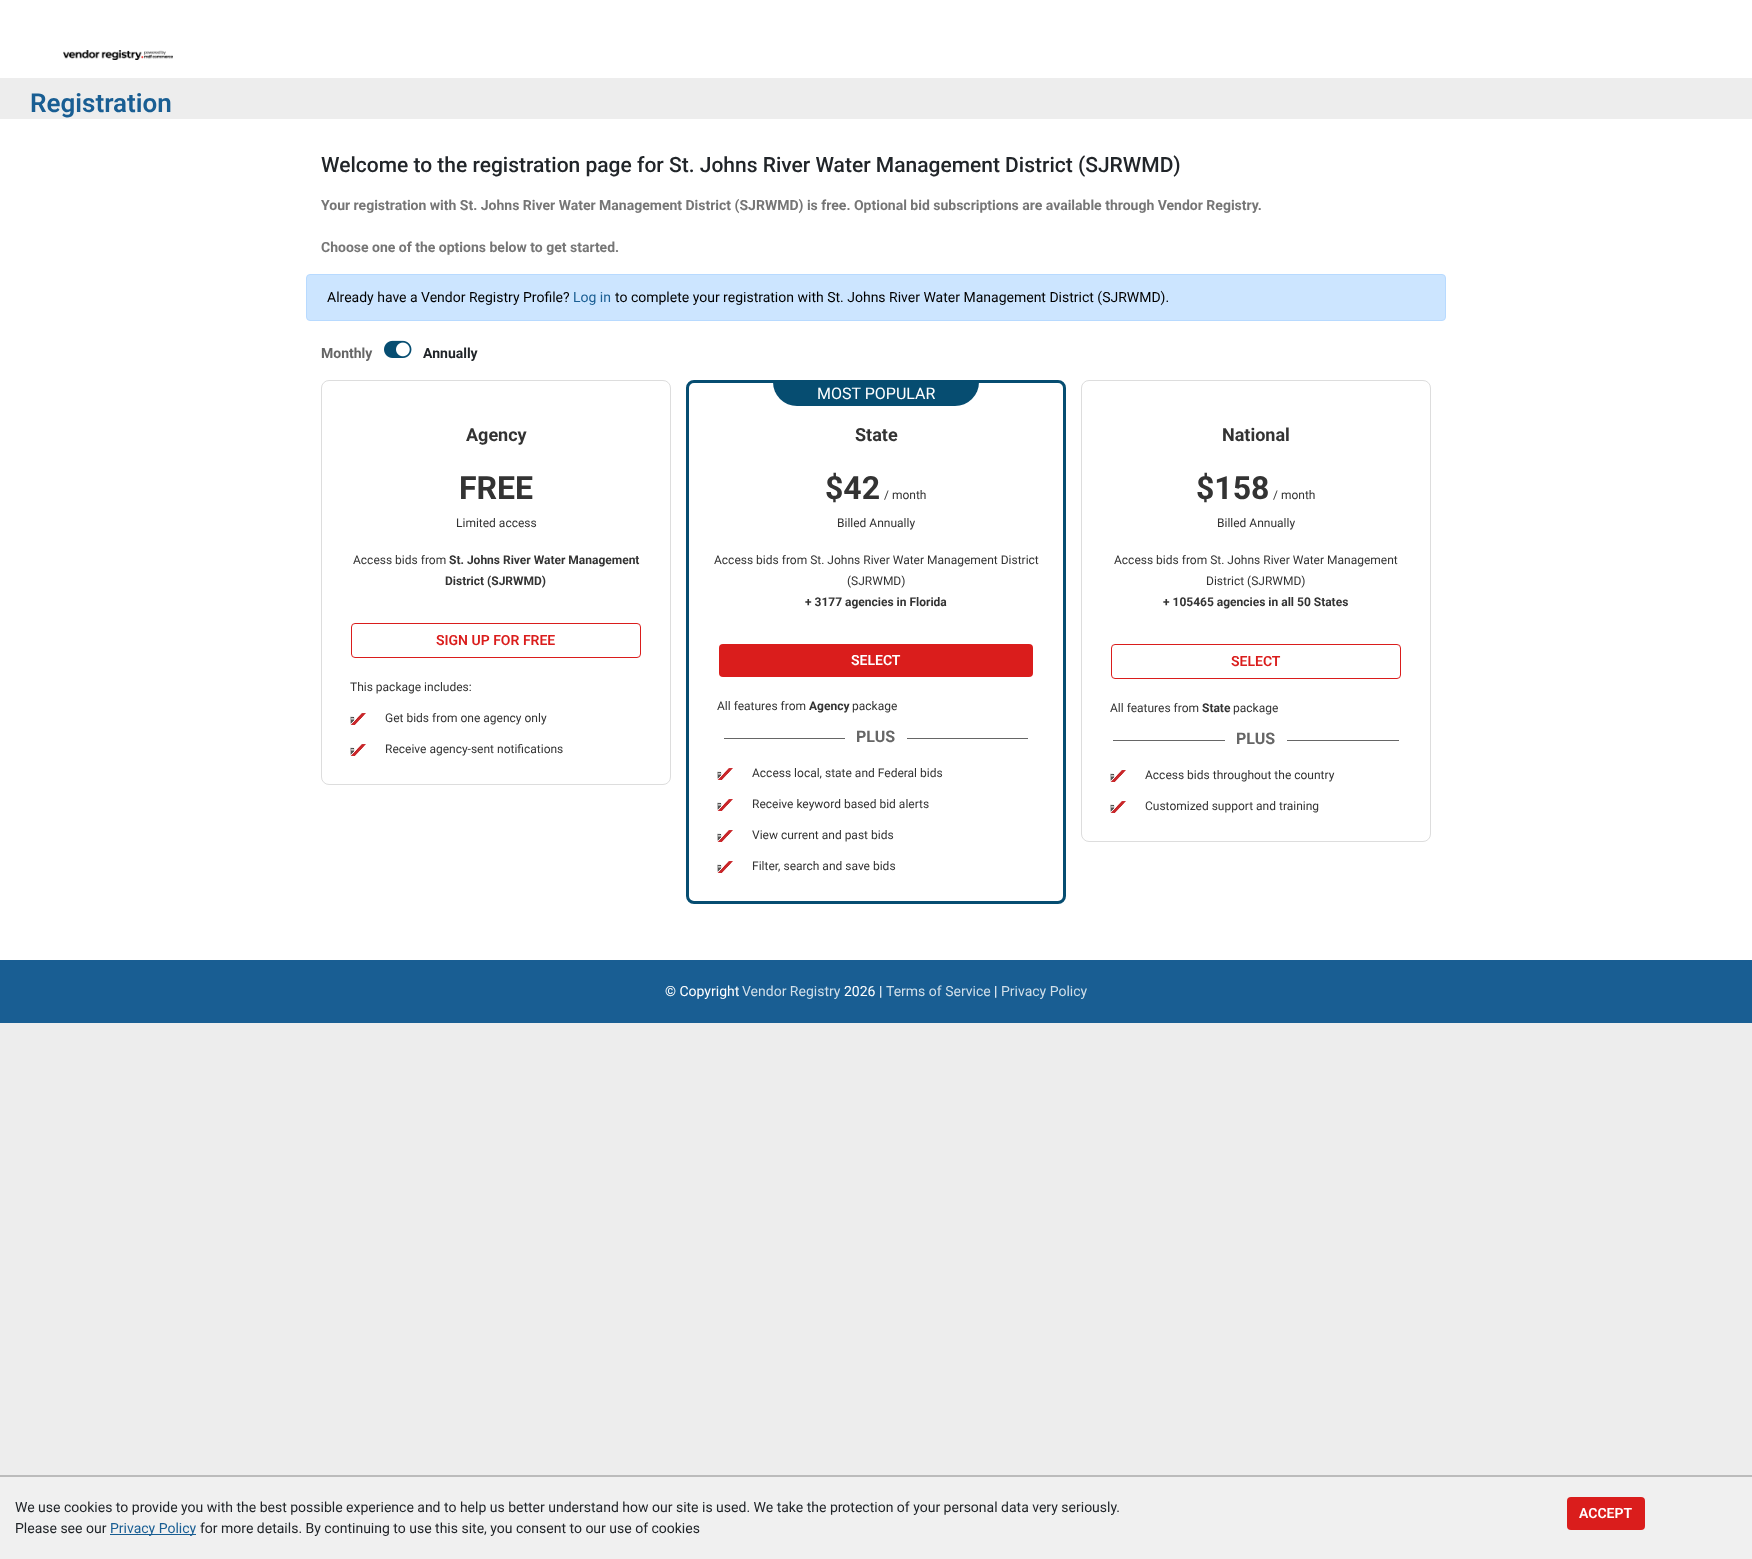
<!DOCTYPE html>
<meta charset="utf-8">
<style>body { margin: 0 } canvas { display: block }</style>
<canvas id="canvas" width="1752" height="1559"></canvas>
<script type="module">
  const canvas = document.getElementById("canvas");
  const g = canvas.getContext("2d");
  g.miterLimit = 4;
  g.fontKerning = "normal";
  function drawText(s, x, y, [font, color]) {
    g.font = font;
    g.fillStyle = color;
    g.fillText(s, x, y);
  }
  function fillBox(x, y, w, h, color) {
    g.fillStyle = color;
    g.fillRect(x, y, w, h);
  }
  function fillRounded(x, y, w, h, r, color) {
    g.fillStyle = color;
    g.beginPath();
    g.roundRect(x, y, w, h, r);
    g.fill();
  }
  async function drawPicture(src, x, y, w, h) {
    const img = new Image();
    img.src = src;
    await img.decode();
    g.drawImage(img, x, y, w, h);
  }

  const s1 = ["600 26px Roboto", "#195E93"];
  const s2 = ["500 21px Roboto", "#212529"];
  const s3 = ["bold 14px Roboto", "#767676"];
  const s4 = ["14px Roboto", "#000000"];
  const s5 = ["14px Roboto", "#195E93"];
  const s6 = ["bold 14px Roboto", "#666666"];
  const s7 = ["bold 14px Roboto", "#212529"];
  const s8 = ["bold 18px Roboto", "#333333"];
  const s9 = ["bold 32px Roboto", "#333333"];
  const s10 = ["12px Roboto", "#333333"];
  const s11 = ["bold 12px Roboto", "#333333"];
  const s12 = ["600 14px Roboto", "#DA1D1C"];
  const s13 = ["16px Roboto", "#FFFFFF"];
  const s14 = ["600 14px Roboto", "#FFFFFF"];
  const s15 = ["bold 16px Roboto", "#666666"];
  const s16 = ["14px Roboto", "#FFFFFF"];
  const s17 = ["14px Roboto", "#D1DFE9"];
  const s18 = ["14px Roboto", "#212529"];

  fillBox(0, 0, 1752, 1559, "#EDEDED");
  fillBox(0, 0, 1752, 78, "#FFFFFF");
  await drawPicture("pic1.png", 63, 50, 110, 10);
  drawText("Registration", 30, 112, s1);
  fillBox(0, 119, 1752, 841, "#FFFFFF");
  drawText("Welcome to the registration page for St. Johns River Water Management District (SJRWMD)", 321, 172, s2);
  drawText("Your registration with St. Johns River Water Management District (SJRWMD) is free. Optional bid subscriptions are available through Vendor Registry.", 321, 210, s3);
  drawText("Choose one of the options below to get started.", 321, 252, s3);
  g.fillStyle = "#CCE5FF";
  g.beginPath();
  g.roundRect(306.5, 274.5, 1139, 46, 3.5);
  g.fill();
  g.strokeStyle = "#B8DAFF";
  g.stroke();
  drawText("Already have a Vendor Registry Profile?", 327, 302, s4);
  drawText("Log in", 573, 302, s5);
  drawText("to complete your registration with St. Johns River Water Management District (SJRWMD).", 615, 302, s4);
  drawText("Monthly", 321, 358, s6);
  await drawPicture("pic2.png", 384, 340, 28, 18);
  drawText("Annually", 423, 358, s7);
  g.beginPath();
  g.roundRect(321.5, 380.5, 349, 404, 7.5);
  g.strokeStyle = "#DDDDDD";
  g.stroke();
  drawText("Agency", 466, 441, s8);
  drawText("FREE", 459, 499, s9);
  drawText("Limited access", 456, 527, s10);
  drawText("Access bids from", 353, 564, s10);
  drawText("St. Johns River Water Management", 449, 564, s11);
  drawText("District (SJRWMD)", 445, 585, s11);
  g.beginPath();
  g.roundRect(351.5, 623.5, 289, 34, 3.5);
  g.strokeStyle = "#DA1D1C";
  g.stroke();
  drawText("SIGN UP FOR FREE", 436, 645, s12);
  drawText("This package includes:", 350, 691, s10);
  await drawPicture("pic3.png", 350, 713, 16, 12);
  drawText("Get bids from one agency only", 385, 722, s10);
  await drawPicture("pic3.png", 350, 744, 16, 12);
  drawText("Receive agency-sent notifications", 385, 753, s10);
  g.beginPath();
  g.roundRect(687.5, 381.5, 377, 521, 6.5);
  g.strokeStyle = "#064D71";
  g.lineWidth = 3;
  g.stroke();
  g.fillStyle = "#064D71";
  g.beginPath();
  g.roundRect(773, 382, 206, 24, [0, 0, 24, 24]);
  g.fill();
  drawText("MOST POPULAR", 817, 399, s13);
  drawText("State", 855, 441, s8);
  drawText("$42", 825, 499, s9);
  drawText("/ month", 884, 499, s10);
  drawText("Billed Annually", 837, 527, s10);
  drawText("Access bids from St. Johns River Water Management District", 714, 564, s10);
  drawText("(SJRWMD)", 847, 585, s10);
  drawText("+ 3177 agencies in Florida", 805, 606, s11);
  fillRounded(719, 644, 314, 33, 4, "#DA1D1C");
  drawText("SELECT", 851, 665, s14);
  drawText("All features from", 717, 710, s10);
  drawText("Agency", 809, 710, s11);
  drawText("package", 852, 710, s10);
  fillBox(724, 738, 121, 1, "#666666");
  drawText("PLUS", 856, 742, s15);
  fillBox(907, 738, 121, 1, "#666666");
  await drawPicture("pic3.png", 717, 768, 16, 12);
  drawText("Access local, state and Federal bids", 752, 777, s10);
  await drawPicture("pic3.png", 717, 799, 16, 12);
  drawText("Receive keyword based bid alerts", 752, 808, s10);
  await drawPicture("pic3.png", 717, 830, 16, 12);
  drawText("View current and past bids", 752, 839, s10);
  await drawPicture("pic3.png", 717, 861, 16, 12);
  drawText("Filter, search and save bids", 752, 870, s10);
  g.beginPath();
  g.roundRect(1081.5, 380.5, 349, 461, 7.5);
  g.strokeStyle = "#DDDDDD";
  g.lineWidth = 1;
  g.stroke();
  drawText("National", 1222, 441, s8);
  drawText("$158", 1196, 499, s9);
  drawText("/ month", 1273, 499, s10);
  drawText("Billed Annually", 1217, 527, s10);
  drawText("Access bids from St. Johns River Water Management", 1114, 564, s10);
  drawText("District (SJRWMD)", 1206, 585, s10);
  drawText("+ 105465 agencies in all 50 States", 1163, 606, s11);
  g.beginPath();
  g.roundRect(1111.5, 644.5, 289, 34, 3.5);
  g.strokeStyle = "#DA1D1C";
  g.stroke();
  drawText("SELECT", 1231, 666, s12);
  drawText("All features from", 1110, 712, s10);
  drawText("State", 1202, 712, s11);
  drawText("package", 1233, 712, s10);
  fillBox(1113, 740, 112, 1, "#666666");
  drawText("PLUS", 1236, 744, s15);
  fillBox(1287, 740, 112, 1, "#666666");
  await drawPicture("pic3.png", 1110, 770, 16, 12);
  drawText("Access bids throughout the country", 1145, 779, s10);
  await drawPicture("pic3.png", 1110, 801, 16, 12);
  drawText("Customized support and training", 1145, 810, s10);
  fillBox(0, 960, 1752, 63, "#195E93");
  drawText("© Copyright", 665, 996, s16);
  drawText("Vendor Registry", 742, 996, s17);
  drawText("2026 |", 844, 996, s16);
  drawText("Terms of Service", 886, 996, s17);
  drawText("|", 994, 996, s16);
  drawText("Privacy Policy", 1001, 996, s17);
  fillBox(0, 1477, 1752, 82, "#F0F0F0");
  fillBox(0, 1475, 1752, 2, "#BBBBBB");
  drawText("We use cookies to provide you with the best possible experience and to help us better understand how our site is used. We take the protection of your personal data very seriously.", 15, 1512, s18);
  drawText("Please see our", 15, 1533, s18);
  fillBox(110, 1534, 86, 1, "#195E93");
  drawText("Privacy Policy", 110, 1533, s5);
  drawText("for more details. By continuing to use this site, you consent to our use of cookies", 200, 1533, s18);
  fillRounded(1567, 1497, 78, 33, 4, "#DA1D1C");
  drawText("ACCEPT", 1579, 1518, s14);
</script>
